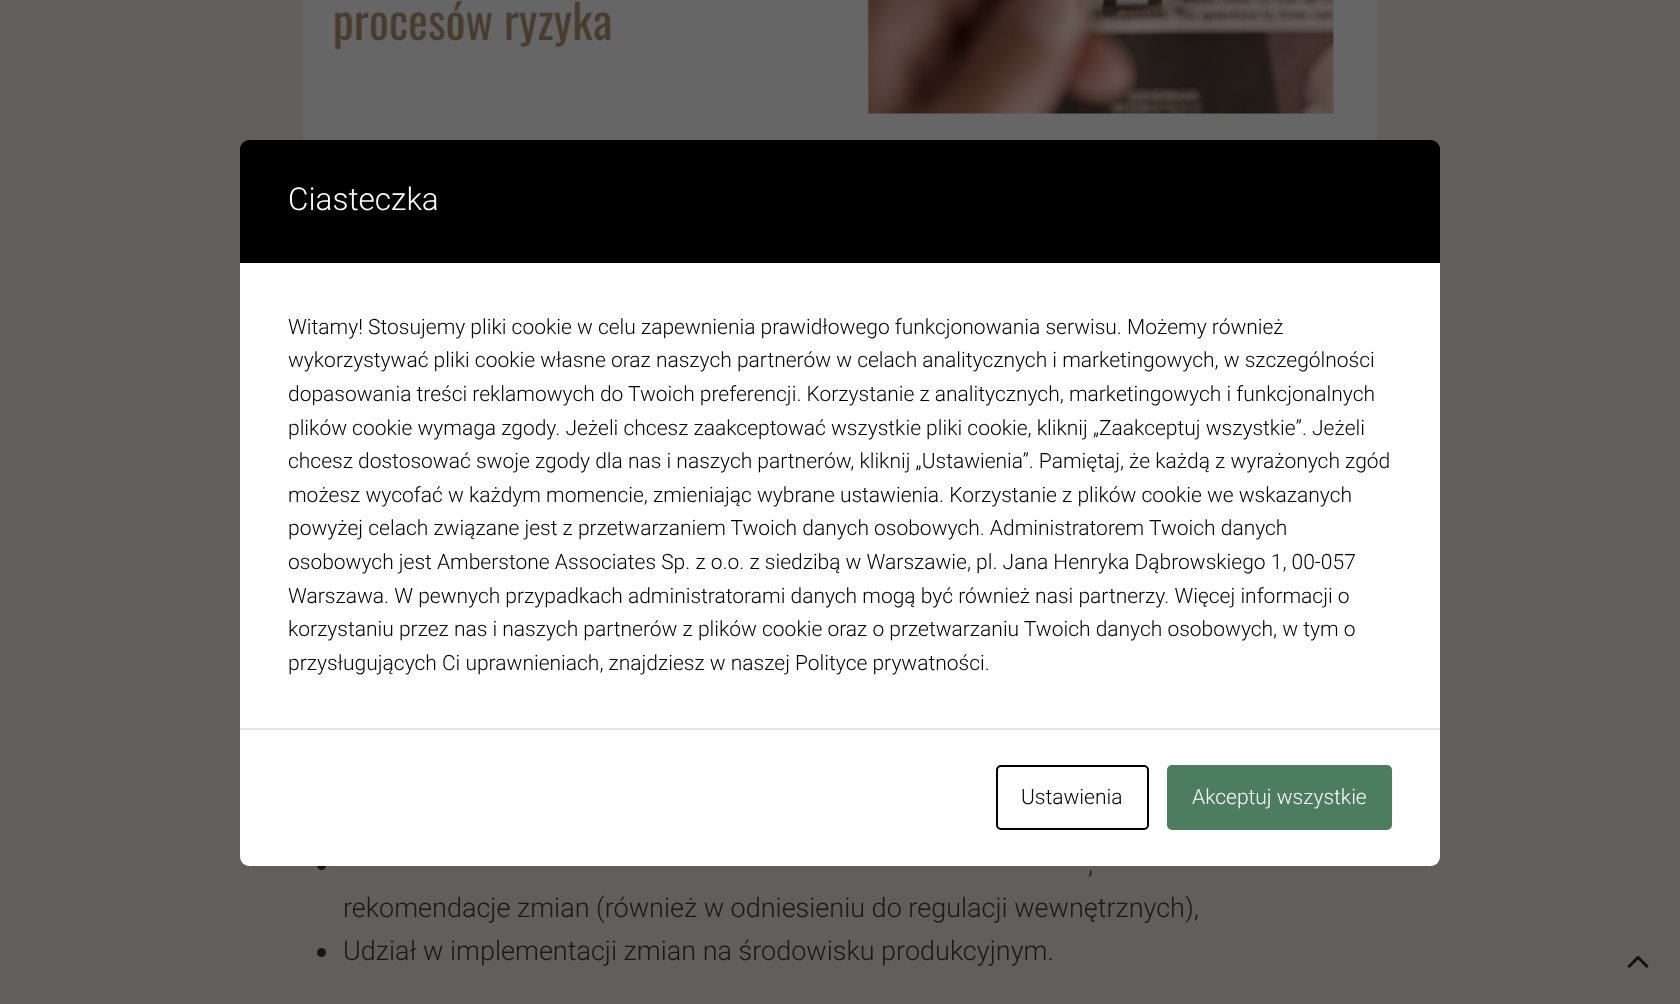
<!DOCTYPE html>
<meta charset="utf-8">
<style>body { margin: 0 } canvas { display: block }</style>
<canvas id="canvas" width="1680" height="1004"></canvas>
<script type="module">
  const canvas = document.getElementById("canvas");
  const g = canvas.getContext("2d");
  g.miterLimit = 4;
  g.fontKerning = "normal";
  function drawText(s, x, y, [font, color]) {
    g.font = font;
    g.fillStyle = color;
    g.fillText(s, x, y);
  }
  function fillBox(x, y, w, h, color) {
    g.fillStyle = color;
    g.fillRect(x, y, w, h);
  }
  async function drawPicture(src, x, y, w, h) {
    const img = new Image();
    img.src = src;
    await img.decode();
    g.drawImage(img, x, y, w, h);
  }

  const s1 = ["300 31.5px Roboto", "#FFFFFF"];
  const s2 = ["300 21px Roboto", "#000000"];
  const s3 = ["300 21px Roboto", "#FFFFFF"];
  const s4 = ["300 27px Roboto", "#18181A"];

  fillBox(0, 0, 1680, 1004, "#605F5D");
  g.fillStyle = "#000000";
  g.beginPath();
  g.roundRect(240, 140, 1200, 123, [9, 9, 0, 0]);
  g.fill();
  drawText("Ciasteczka", 288, 210, s1);
  fillBox(240, 263, 1200, 465, "#FFFFFF");
  drawText("Witamy! Stosujemy pliki cookie w celu zapewnienia prawidłowego funkcjonowania serwisu. Możemy również", 288, 334, s2);
  drawText("wykorzystywać pliki cookie własne oraz naszych partnerów w celach analitycznych i marketingowych, w szczególności", 288, 367, s2);
  drawText("dopasowania treści reklamowych do Twoich preferencji. Korzystanie z analitycznych, marketingowych i funkcjonalnych", 288, 401, s2);
  drawText("plików cookie wymaga zgody. Jeżeli chcesz zaakceptować wszystkie pliki cookie, kliknij „Zaakceptuj wszystkie”. Jeżeli", 288, 435, s2);
  drawText("chcesz dostosować swoje zgody dla nas i naszych partnerów, kliknij „Ustawienia”. Pamiętaj, że każdą z wyrażonych zgód", 288, 468, s2);
  drawText("możesz wycofać w każdym momencie, zmieniając wybrane ustawienia. Korzystanie z plików cookie we wskazanych", 288, 502, s2);
  drawText("powyżej celach związane jest z przetwarzaniem Twoich danych osobowych. Administratorem Twoich danych", 288, 535, s2);
  drawText("osobowych jest Amberstone Associates Sp. z o.o. z siedzibą w Warszawie, pl. Jana Henryka Dąbrowskiego 1, 00-057", 288, 569, s2);
  drawText("Warszawa. W pewnych przypadkach administratorami danych mogą być również nasi partnerzy. Więcej informacji o", 288, 603, s2);
  drawText("korzystaniu przez nas i naszych partnerów z plików cookie oraz o przetwarzaniu Twoich danych osobowych, w tym o", 288, 636, s2);
  drawText("przysługujących Ci uprawnieniach, znajdziesz w naszej Polityce prywatności.", 288, 670, s2);
  g.fillStyle = "#18181A";
  g.beginPath();
  g.arc(321.5, 865.5, 4.5, 0, Math.PI * 2);
  g.fill();
  g.fillStyle = "#FFFFFF";
  g.beginPath();
  g.roundRect(240, 728, 1200, 138, [0, 0, 9, 9]);
  g.fill();
  fillBox(240, 728, 1200, 2, "#E6E6E6");
  g.beginPath();
  g.roundRect(997, 766, 151, 63, 4);
  g.strokeStyle = "#000000";
  g.lineWidth = 2;
  g.stroke();
  drawText("Ustawienia", 1021, 804, s2);
  g.fillStyle = "#4B7D5E";
  g.beginPath();
  g.roundRect(1168, 766, 223, 63, 4);
  g.fill();
  g.strokeStyle = "#4B7D5E";
  g.stroke();
  drawText("Akceptuj wszystkie", 1192, 804, s3);
  await drawPicture("pic1.png", 303, 0, 1074, 140);
  drawText(",", 1088, 873, s4);
  drawText("rekomendacje zmian (również w odniesieniu do regulacji wewnętrznych),", 343, 917, s4);
  g.beginPath();
  g.arc(321.5, 952.5, 4.5, 0, Math.PI * 2);
  g.fill();
  drawText("Udział w implementacji zmian na środowisku produkcyjnym.", 343, 960, s4);
  await drawPicture("pic2.png", 1627, 955, 22, 13);
</script>
